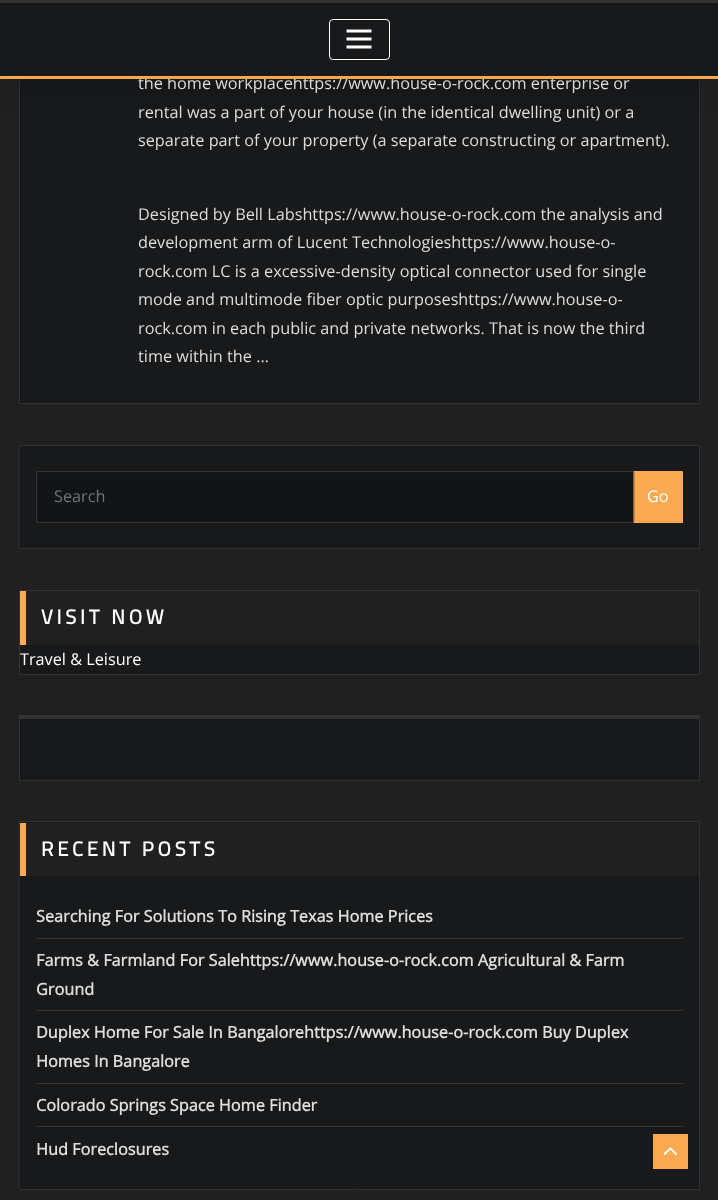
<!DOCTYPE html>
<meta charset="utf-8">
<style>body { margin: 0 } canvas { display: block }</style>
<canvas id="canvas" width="718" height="1200"></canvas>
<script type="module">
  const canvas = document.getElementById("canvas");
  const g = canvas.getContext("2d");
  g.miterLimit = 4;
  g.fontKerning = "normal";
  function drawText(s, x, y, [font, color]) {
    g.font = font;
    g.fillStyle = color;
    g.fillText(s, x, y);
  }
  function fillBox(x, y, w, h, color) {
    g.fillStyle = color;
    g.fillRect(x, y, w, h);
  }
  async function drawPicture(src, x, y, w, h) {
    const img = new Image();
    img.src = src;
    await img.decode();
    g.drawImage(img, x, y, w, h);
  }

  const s1 = ["16.25px Open Sans", "#DDDDDD"];
  const s2 = ["16.25px Open Sans", "#6C757D"];
  const s3 = ["16.25px Open Sans", "#FFFFFF"];
  const s4 = ["bold 20.25px Titillium Web", "#FFFFFF"];
  const s5 = ["bold 16.25px Open Sans", "#DDDDDD"];

  fillBox(0, 0, 718, 1200, "#202020");
  fillBox(20, 79, 679, 324, "#18191B");
  g.strokeStyle = "#333333";
  g.strokeRect(19.5, -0.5, 680, 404);
  g.fillStyle = "rgba(0, 0, 0, 0.1)";
  g.filter = "blur(12.5px)";
  g.beginPath();
  g.rect(0, 10, 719, 79);
  g.fill();
  g.filter = "none";
  fillBox(0, 3, 718, 73, "#18191B");
  fillBox(0, 0, 718, 3, "#333333");
  drawText("the home workplacehttps://www.house-o-rock.com enterprise or", 138, 89, s1);
  fillBox(0, 76, 718, 3, "#FCAA52");
  g.beginPath();
  g.roundRect(329.5, 19.5, 60, 40, 3.5);
  g.strokeStyle = "#FFFFFF";
  g.stroke();
  g.beginPath();
  g.moveTo(348, 31);
  g.lineTo(370, 31);
  g.moveTo(348, 39);
  g.lineTo(370, 39);
  g.moveTo(348, 47);
  g.lineTo(370, 47);
  g.lineWidth = 3;
  g.lineCap = "square";
  g.stroke();
  drawText("rental was a part of your house (in the identical dwelling unit) or a", 138, 118, s1);
  drawText("separate part of your property (a separate constructing or apartment).", 138, 146, s1);
  drawText("Designed by Bell Labshttps://www.house-o-rock.com the analysis and", 138, 220, s1);
  drawText("development arm of Lucent Technologieshttps://www.house-o-", 138, 248, s1);
  drawText("rock.com LC is a excessive-density optical connector used for single", 138, 277, s1);
  drawText("mode and multimode fiber optic purposeshttps://www.house-o-", 138, 305, s1);
  drawText("rock.com in each public and private networks. That is now the third", 138, 334, s1);
  drawText("time within the …", 138, 362, s1);
  g.fillStyle = "#18191B";
  g.beginPath();
  g.rect(19.5, 445.5, 680, 103);
  g.fill();
  g.strokeStyle = "#333333";
  g.lineWidth = 1;
  g.stroke();
  fillBox(38, 474, 596, 47, "#131416");
  fillBox(38, 473, 596, 1, "#121314");
  g.strokeRect(36.5, 471.5, 598, 51);
  drawText("Search", 54, 502, s2);
  g.fillStyle = "#FCAA52";
  g.beginPath();
  g.rect(634.5, 471.5, 48, 51);
  g.fill();
  g.strokeStyle = "#FCAA52";
  g.stroke();
  drawText("Go", 647, 502, s3);
  fillBox(20, 645, 679, 29, "#18191B");
  g.strokeStyle = "#333333";
  g.strokeRect(19.5, 590.5, 680, 84);
  fillBox(20, 591, 6, 54, "#FCAA52");
  g.letterSpacing = "3.75px";
  drawText("VISIT NOW", 41, 624, s4);
  g.letterSpacing = "0px";
  drawText("Travel & Leisure", 20, 665, s3);
  fillBox(20, 719, 679, 61, "#18191B");
  g.strokeRect(19.5, 715.5, 680, 65);
  fillBox(20, 716, 679, 3, "#333333");
  g.fillStyle = "#18191B";
  g.beginPath();
  g.rect(19.5, 821.5, 680, 368);
  g.fill();
  g.stroke();
  fillBox(26, 823, 673, 53, "#202020");
  fillBox(20, 823, 6, 53, "#FCAA52");
  g.letterSpacing = "3.75px";
  drawText("RECENT POSTS", 41, 856, s4);
  fillBox(36, 938, 647, 1, "#333333");
  g.letterSpacing = "0px";
  drawText("Searching For Solutions To Rising Texas Home Prices", 36, 922, s5);
  fillBox(36, 1010, 647, 1, "#333333");
  drawText("Farms & Farmland For Salehttps://www.house-o-rock.com Agricultural & Farm", 36, 966, s5);
  drawText("Ground", 36, 995, s5);
  fillBox(36, 1083, 647, 1, "#333333");
  drawText("Duplex Home For Sale In Bangalorehttps://www.house-o-rock.com Buy Duplex", 36, 1038, s5);
  drawText("Homes In Bangalore", 36, 1067, s5);
  fillBox(36, 1126, 647, 1, "#333333");
  drawText("Colorado Springs Space Home Finder", 36, 1111, s5);
  drawText("Hud Foreclosures", 36, 1155, s5);
  fillBox(653, 1134, 35, 35, "#FCAA52");
  await drawPicture("pic1.png", 663, 1147, 14, 8);
</script>
